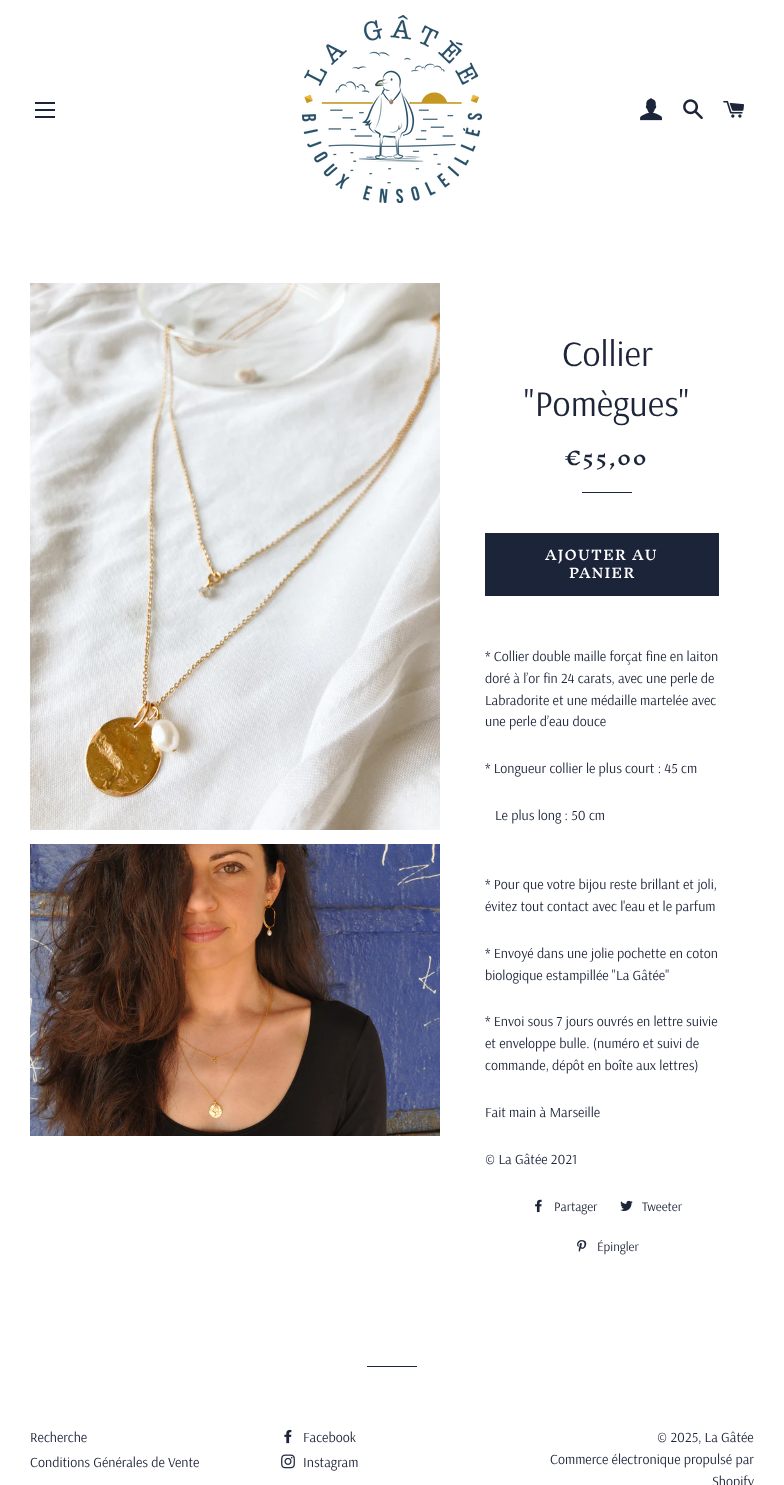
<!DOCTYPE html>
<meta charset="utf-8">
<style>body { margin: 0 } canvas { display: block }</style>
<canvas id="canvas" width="784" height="1485"></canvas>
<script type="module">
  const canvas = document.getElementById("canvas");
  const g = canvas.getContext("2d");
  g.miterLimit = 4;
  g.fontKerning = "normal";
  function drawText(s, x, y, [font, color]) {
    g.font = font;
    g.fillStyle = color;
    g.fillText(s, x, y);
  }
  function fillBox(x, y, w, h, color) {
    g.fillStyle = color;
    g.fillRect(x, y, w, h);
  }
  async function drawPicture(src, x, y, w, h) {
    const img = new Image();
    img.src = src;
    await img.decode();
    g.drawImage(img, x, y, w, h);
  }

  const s1 = ["36px Arsenal", "#1C2439"];
  const s2 = ["600 18px Inknut Antiqua", "#1C2439"];
  const s3 = ["600 13px Inknut Antiqua", "#FFFFFF"];
  const s4 = ["14px Arsenal", "#1C2439"];
  const s5 = ["13px Arsenal", "#1C2439"];

  fillBox(0, 0, 784, 1485, "#FFFFFF");
  fillBox(35, 102, 20, 2, "#1C2439");
  fillBox(35, 109, 20, 2, "#1C2439");
  fillBox(35, 116, 20, 2, "#1C2439");
  await drawPicture("pic1.png", 302, 15, 180, 188);
  await drawPicture("pic2.png", 640, 98, 22, 23);
  await drawPicture("pic3.png", 683, 99, 20, 20);
  await drawPicture("pic4.png", 723, 100, 21, 18);
  await drawPicture("pic5.png", 30, 283, 410, 547);
  await drawPicture("pic6.png", 30, 844, 410, 292);
  drawText("Collier", 562, 366, s1);
  drawText("\"Pomègues\"", 524, 416, s1);
  g.letterSpacing = "1.75px";
  drawText("€55,00", 565, 465, s2);
  fillBox(582, 492, 50, 1, "#1C2439");
  fillBox(485, 533, 234, 63, "#1C2439");
  g.letterSpacing = "1.25px";
  drawText("AJOUTER AU", 545, 560, s3);
  drawText("PANIER", 569, 578, s3);
  g.letterSpacing = "0px";
  drawText("* Collier double maille forçat fine en laiton", 485, 661, s4);
  drawText("doré à l’or fin 24 carats, avec une perle de", 485, 683, s4);
  drawText("Labradorite et une médaille martelée avec", 485, 705, s4);
  drawText("une perle d’eau douce", 485, 726, s4);
  drawText("* Longueur collier le plus court : 45 cm", 485, 773, s4);
  drawText("Le plus long : 50 cm", 495, 820, s4);
  drawText("* Pour que votre bijou reste brillant et joli,", 485, 889, s4);
  drawText("évitez tout contact avec l'eau et le parfum", 485, 911, s4);
  drawText("* Envoyé dans une jolie pochette en coton", 485, 958, s4);
  drawText("biologique estampillée \"La Gâtée\"", 485, 980, s4);
  drawText("* Envoi sous 7 jours ouvrés en lettre suivie", 485, 1026, s4);
  drawText("et enveloppe bulle. (numéro et suivi de", 485, 1048, s4);
  drawText("commande, dépôt en boîte aux lettres)", 485, 1070, s4);
  drawText("Fait main à Marseille", 485, 1117, s4);
  drawText("© La Gâtée 2021", 485, 1164, s4);
  await drawPicture("pic7.png", 535, 1199, 7, 14);
  drawText("Partager", 554, 1211, s5);
  await drawPicture("pic8.png", 620, 1200, 13, 11);
  drawText("Tweeter", 642, 1211, s5);
  await drawPicture("pic9.png", 577, 1240, 10, 12);
  drawText("Épingler", 597, 1251, s5);
  fillBox(367, 1366, 50, 1, "#1C2439");
  drawText("Recherche", 30, 1442, s4);
  drawText("Conditions Générales de Vente", 30, 1467, s4);
  await drawPicture("pic10.png", 284, 1429, 8, 15);
  drawText("Facebook", 303, 1442, s4);
  await drawPicture("pic11.png", 281, 1454, 14, 15);
  drawText("Instagram", 303, 1467, s4);
  drawText("© 2025, La Gâtée", 657, 1442, s4);
  drawText("Commerce électronique propulsé par", 550, 1464, s4);
  drawText("Shopify", 712, 1486, s4);
</script>
